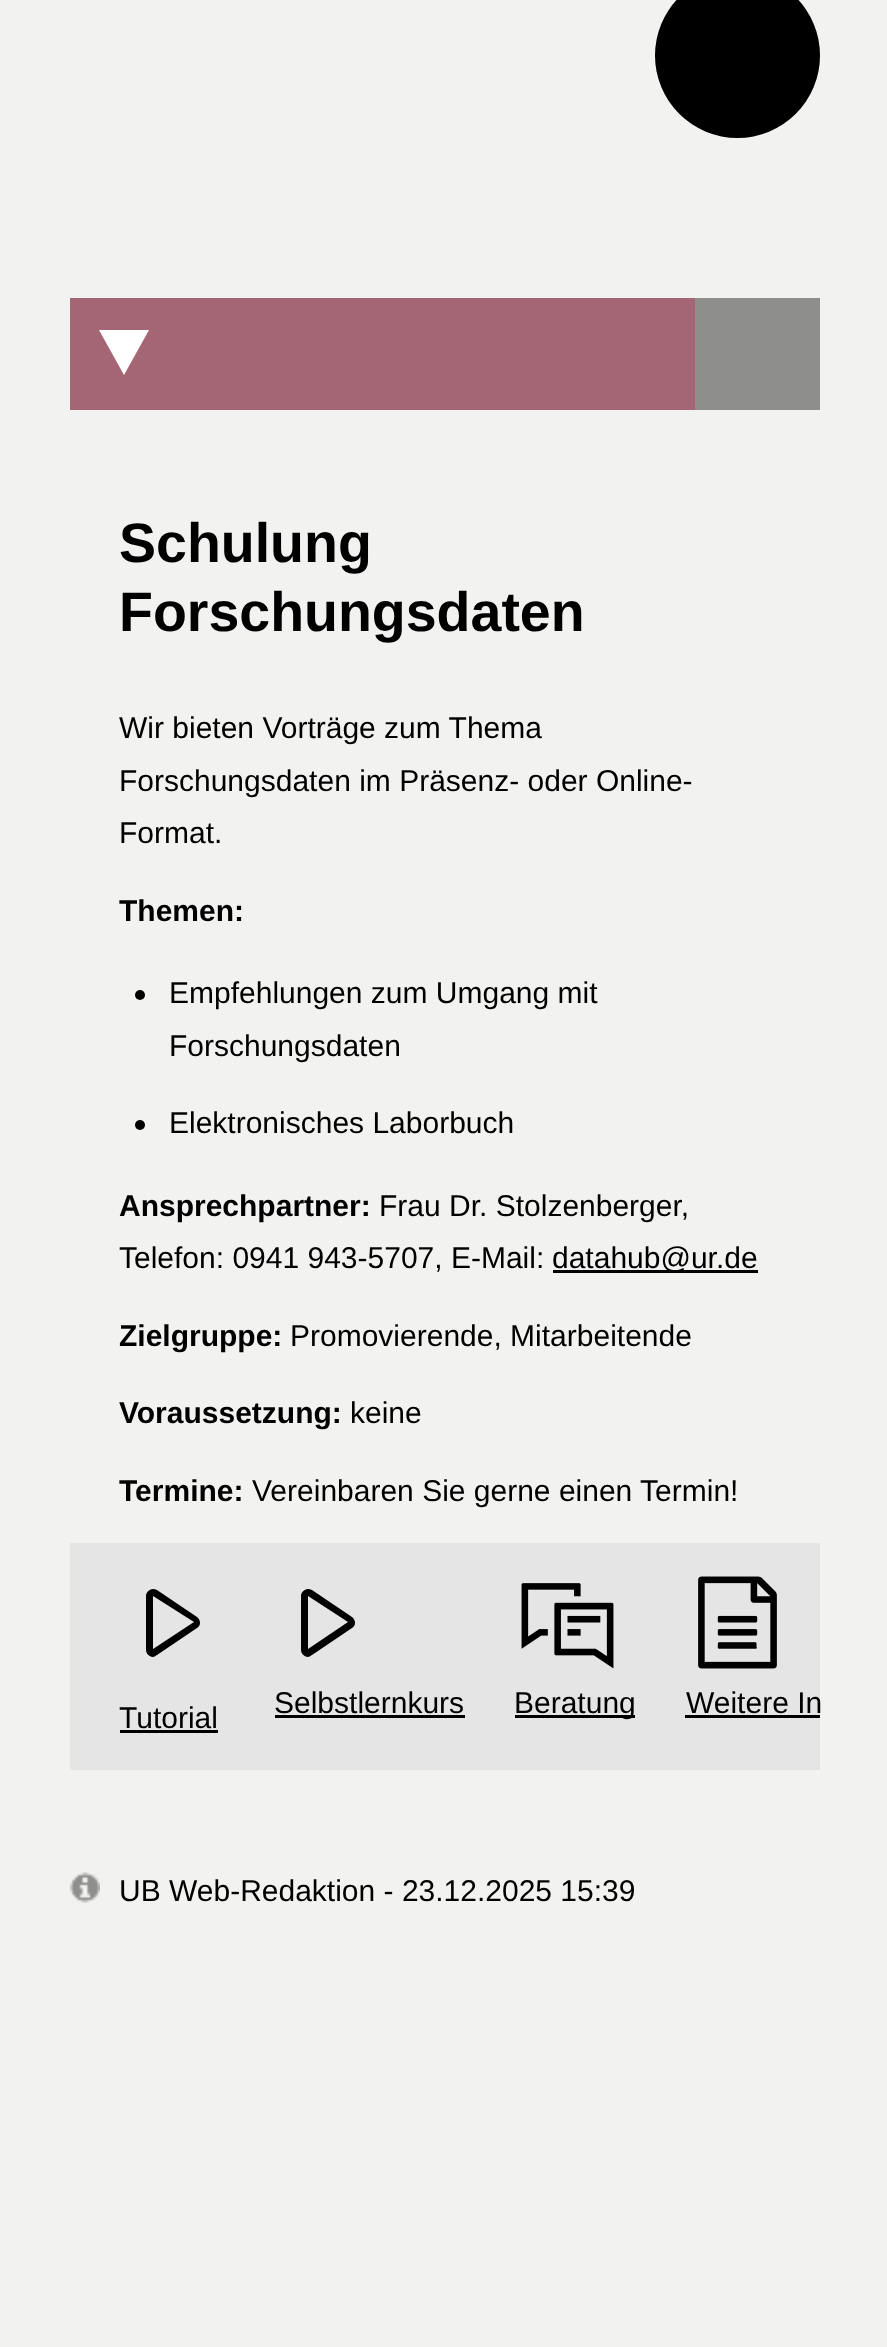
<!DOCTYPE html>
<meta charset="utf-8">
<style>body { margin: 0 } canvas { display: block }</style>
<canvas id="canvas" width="887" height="2347"></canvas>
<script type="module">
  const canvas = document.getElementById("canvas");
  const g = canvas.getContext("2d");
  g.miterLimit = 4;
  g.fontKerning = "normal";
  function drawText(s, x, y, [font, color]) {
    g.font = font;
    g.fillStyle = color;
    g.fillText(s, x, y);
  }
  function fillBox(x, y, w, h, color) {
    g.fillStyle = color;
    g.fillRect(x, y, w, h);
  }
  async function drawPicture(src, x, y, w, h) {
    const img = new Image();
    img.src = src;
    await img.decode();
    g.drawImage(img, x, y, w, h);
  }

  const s1 = ["bold 55.5px Liberation Sans", "#000000"];
  const s2 = ["30px Liberation Sans", "#000000"];
  const s3 = ["bold 30px Liberation Sans", "#000000"];

  fillBox(0, 0, 887, 2347, "#F2F2F1");
  g.fillStyle = "#000000";
  g.beginPath();
  g.arc(737.5, 55.5, 82.5, 0, Math.PI * 2);
  g.fill();
  fillBox(70, 298, 625, 112, "#A46674");
  g.fillStyle = "#FFFFFF";
  g.beginPath();
  g.moveTo(149, 330);
  g.lineTo(99, 330);
  g.lineTo(124, 375);
  g.closePath();
  g.fill();
  fillBox(695, 298, 125, 112, "#8E8E8D");
  drawText("Schulung", 119, 562, s1);
  drawText("Forschungsdaten", 119, 631, s1);
  drawText("Wir bieten Vorträge zum Thema", 119, 738, s2);
  drawText("Forschungsdaten im Präsenz- oder Online-", 119, 791, s2);
  drawText("Format.", 119, 843, s2);
  drawText("Themen:", 119, 921, s3);
  g.beginPath();
  g.arc(140, 995, 5, 0, Math.PI * 2);
  g.fill();
  drawText("Empfehlungen zum Umgang mit", 169, 1003, s2);
  drawText("Forschungsdaten", 169, 1056, s2);
  g.beginPath();
  g.arc(140, 1125, 5, 0, Math.PI * 2);
  g.fill();
  drawText("Elektronisches Laborbuch", 169, 1133, s2);
  drawText("Ansprechpartner:", 119, 1216, s3);
  drawText("Frau Dr. Stolzenberger,", 379, 1216, s2);
  drawText("Telefon: 0941 943-5707, E-Mail:", 119, 1268, s2);
  fillBox(553, 1270, 205, 3, "#000000");
  drawText("datahub@ur.de", 552, 1268, s2);
  drawText("Zielgruppe:", 119, 1346, s3);
  drawText("Promovierende, Mitarbeitende", 290, 1346, s2);
  drawText("Voraussetzung:", 119, 1423, s3);
  drawText("keine", 350, 1423, s2);
  drawText("Termine:", 119, 1501, s3);
  drawText("Vereinbaren Sie gerne einen Termin!", 252, 1501, s2);
  fillBox(70, 1543, 750, 227, "#E5E5E5");
  g.fillStyle = "#000000";
  g.beginPath();
  g.moveTo(153, 1596);
  g.lineTo(194, 1622);
  g.lineTo(153, 1649);
  g.lineTo(153, 1596);
  g.moveTo(153, 1589);
  g.bezierCurveTo(150, 1589, 146, 1592, 146, 1596);
  g.lineTo(146, 1650);
  g.bezierCurveTo(146, 1654, 150, 1657, 153, 1657);
  g.bezierCurveTo(154, 1657, 155, 1656, 157, 1655);
  g.lineTo(197, 1628);
  g.bezierCurveTo(201, 1626, 201, 1620, 197, 1617);
  g.lineTo(157, 1590);
  g.bezierCurveTo(155, 1589, 154, 1589, 153, 1589);
  g.closePath();
  g.fill();
  drawText("Tutorial", 119, 1728, s2);
  fillBox(120, 1730, 98, 3, "#000000");
  g.beginPath();
  g.moveTo(308, 1596);
  g.lineTo(348, 1622);
  g.lineTo(308, 1649);
  g.lineTo(308, 1596);
  g.moveTo(308, 1589);
  g.bezierCurveTo(305, 1589, 301, 1592, 301, 1596);
  g.lineTo(301, 1650);
  g.bezierCurveTo(301, 1654, 305, 1657, 308, 1657);
  g.bezierCurveTo(309, 1657, 310, 1656, 312, 1655);
  g.lineTo(352, 1628);
  g.bezierCurveTo(356, 1626, 356, 1620, 352, 1617);
  g.lineTo(312, 1590);
  g.bezierCurveTo(310, 1589, 309, 1589, 308, 1589);
  g.closePath();
  g.fill();
  drawText("Selbstlernkurs", 274, 1713, s2);
  fillBox(275, 1715, 190, 3, "#000000");
  await drawPicture("pic1.png", 521, 1583, 93, 86);
  fillBox(515, 1715, 120, 3, "#000000");
  drawText("Beratung", 514, 1713, s2);
  await drawPicture("pic2.png", 698, 1576, 79, 93);
  drawText("Weitere In", 686, 1713, s2);
  fillBox(685, 1715, 135, 3, "#000000");
  await drawPicture("pic3.png", 70, 1872, 30, 31);
  drawText("UB Web-Redaktion - 23.12.2025 15:39", 119, 1901, s2);
</script>
